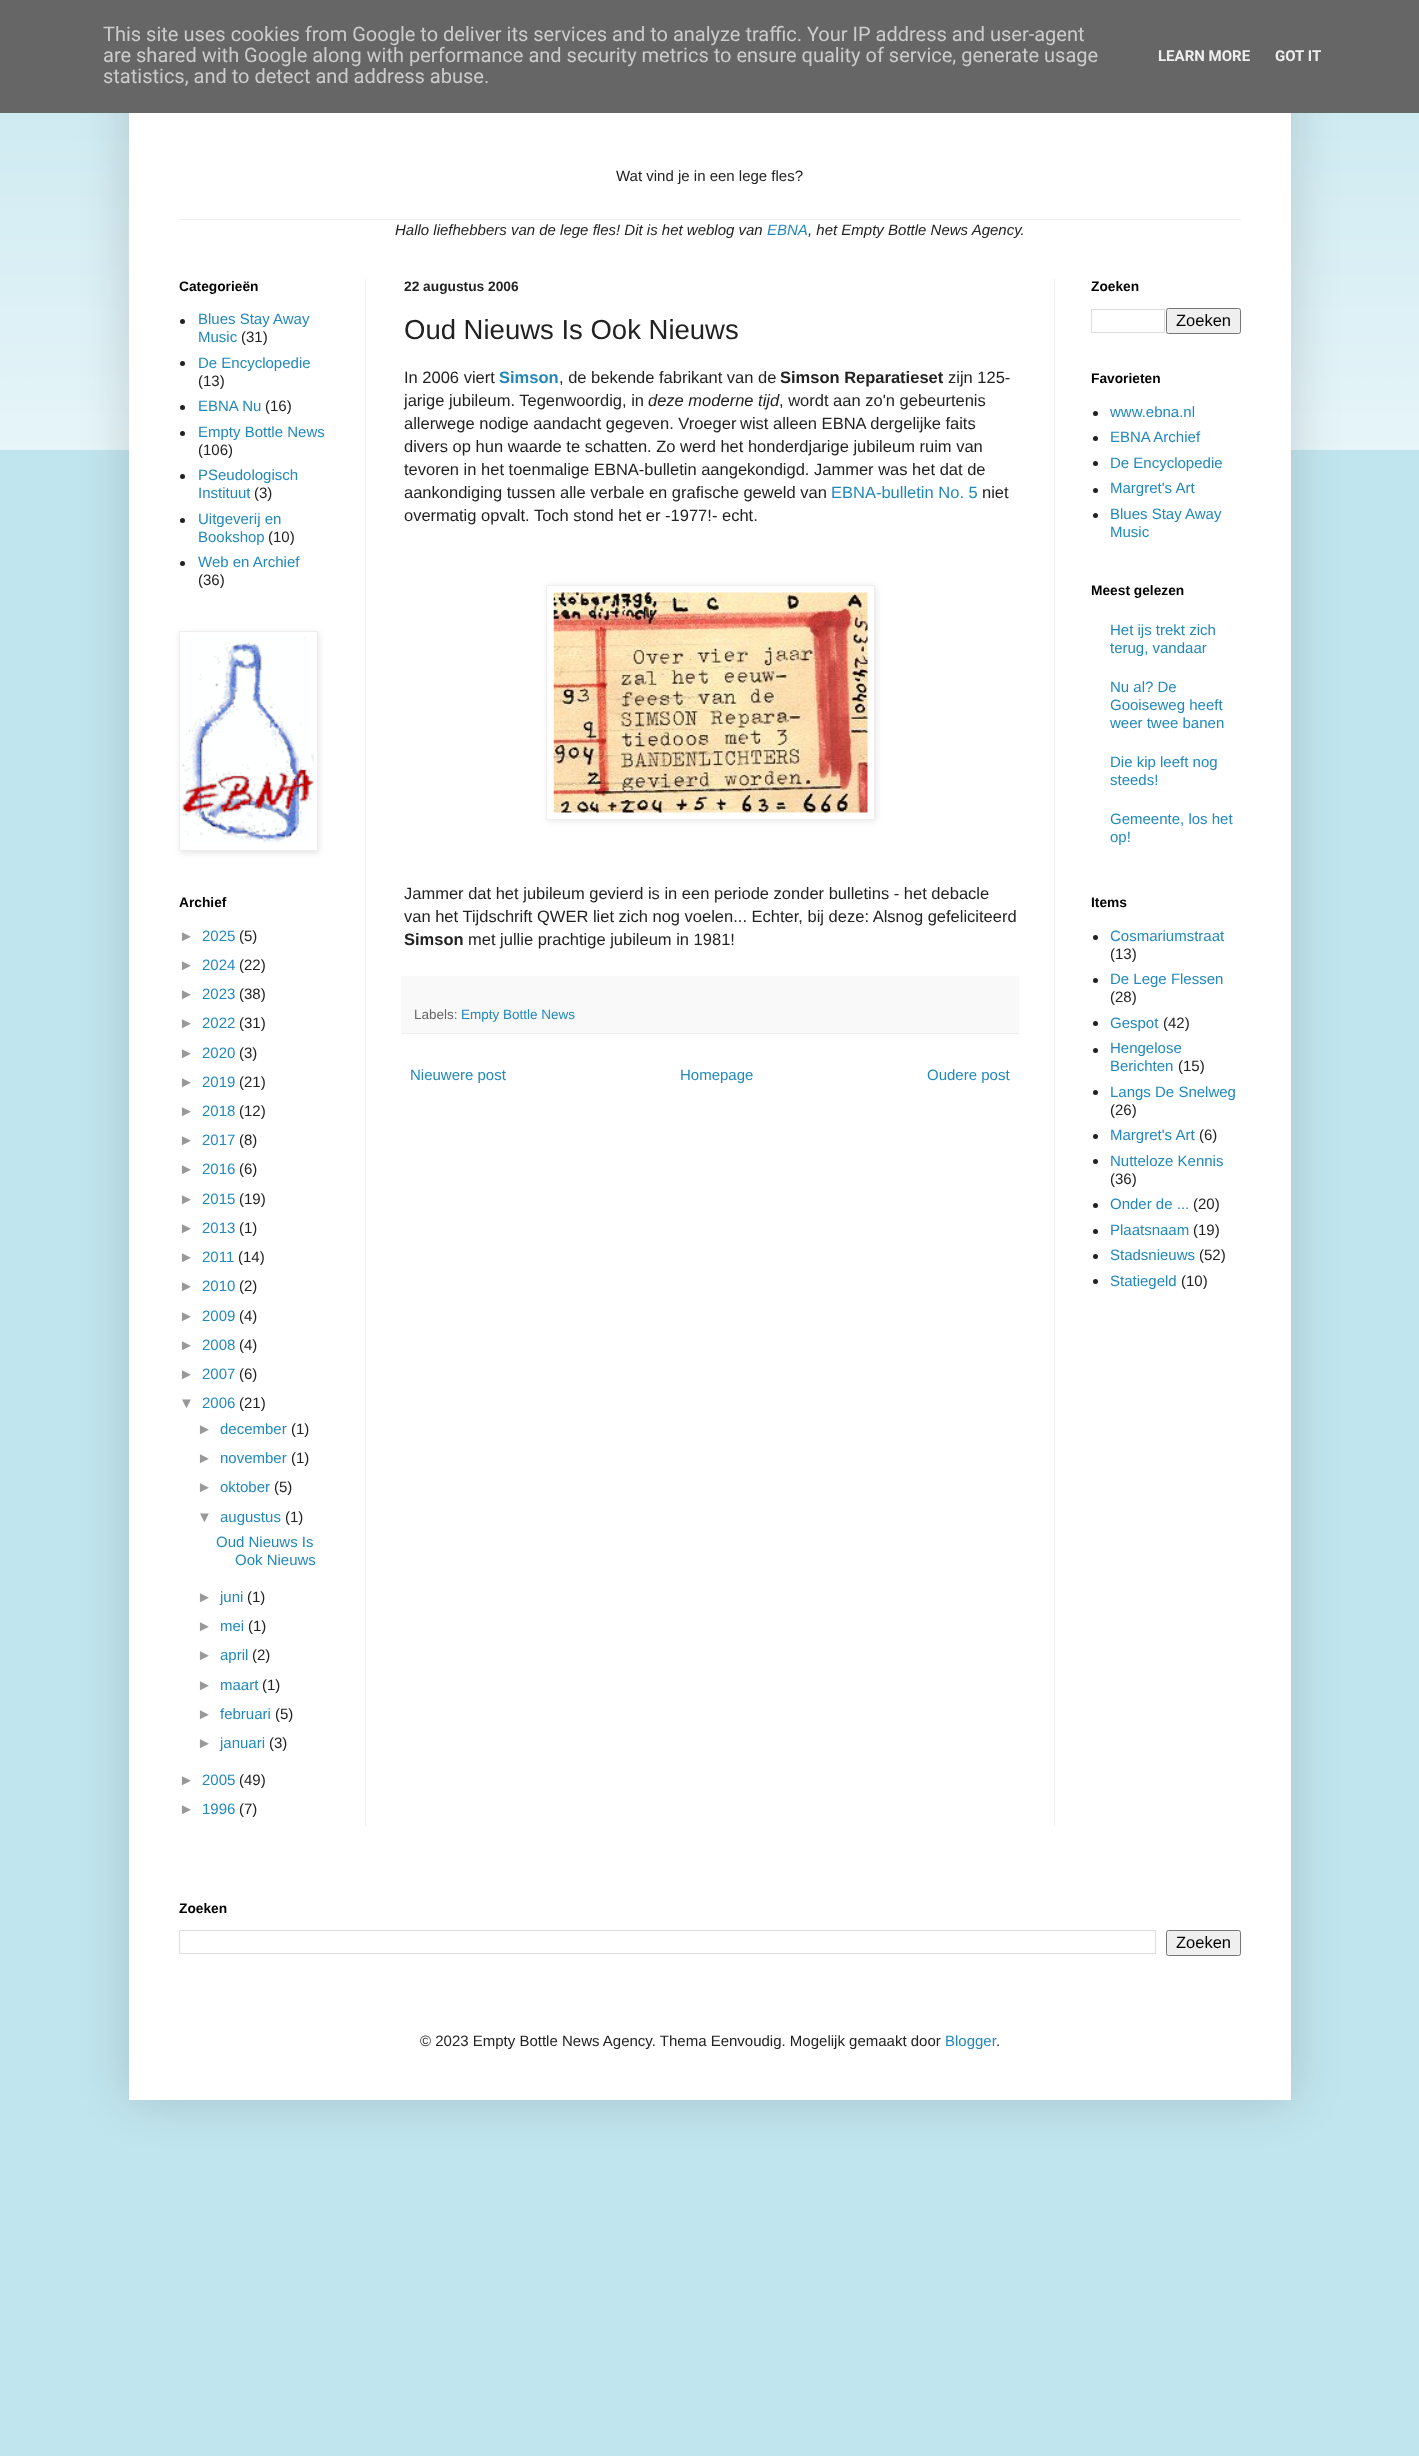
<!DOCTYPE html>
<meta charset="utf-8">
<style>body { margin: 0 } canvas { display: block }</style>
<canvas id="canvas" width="1419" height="2456"></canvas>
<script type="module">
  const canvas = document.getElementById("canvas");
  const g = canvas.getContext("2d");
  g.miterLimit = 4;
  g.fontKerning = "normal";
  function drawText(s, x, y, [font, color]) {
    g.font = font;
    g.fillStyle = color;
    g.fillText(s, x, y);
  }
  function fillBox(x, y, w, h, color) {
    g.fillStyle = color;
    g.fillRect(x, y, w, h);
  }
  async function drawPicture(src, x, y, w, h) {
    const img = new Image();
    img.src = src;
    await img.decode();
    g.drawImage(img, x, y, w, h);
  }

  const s1 = ["20px Roboto", "#CCCCCC"];
  const s2 = ["bold 15px Roboto", "#EEEEEE"];
  const s3 = ["15px Liberation Sans", "#222222"];
  const s4 = ["italic 15px Liberation Sans", "#222222"];
  const s5 = ["italic 15px Liberation Sans", "#2288BB"];
  const s6 = ["bold 13.75px Liberation Sans", "#000000"];
  const s7 = ["15px Liberation Sans", "#2288BB"];
  const s8 = ["15px Liberation Sans", "#999999"];
  const s9 = ["bold 13.75px Liberation Sans", "#222222"];
  const s10 = ["27.5px Liberation Sans", "#222222"];
  const s11 = ["16.5px Liberation Sans", "#222222"];
  const s12 = ["bold 16.5px Liberation Sans", "#2288BB"];
  const s13 = ["bold 16.5px Liberation Sans", "#222222"];
  const s14 = ["italic 16.5px Liberation Sans", "#222222"];
  const s15 = ["16.5px Liberation Sans", "#2288BB"];
  const s16 = ["13.5px Liberation Sans", "#666666"];
  const s17 = ["13.5px Liberation Sans", "#2288BB"];
  const s18 = ["16.5px Liberation Sans", "#000000"];

  fillBox(0, 0, 1419, 2456, "#C1E5EE");
  await drawPicture("pic1.png", 0, 113, 1419, 337);
  g.fillStyle = "rgba(0, 0, 0, 0.15)";
  g.filter = "blur(25px)";
  g.beginPath();
  g.rect(129, -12, 1162, 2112);
  g.fill();
  g.filter = "none";
  fillBox(0, 0, 1419, 113, "#666666");
  drawText("This site uses cookies from Google to deliver its services and to analyze traffic. Your IP address and user-agent", 103, 41, s1);
  drawText("are shared with Google along with performance and security metrics to ensure quality of service, generate usage", 103, 62, s1);
  drawText("statistics, and to detect and address abuse.", 103, 83, s1);
  drawText("LEARN MORE", 1158, 61, s2);
  drawText("GOT IT", 1275, 61, s2);
  fillBox(129, 113, 1162, 1987, "#FFFFFF");
  drawText("Wat vind je in een lege fles?", 616, 181, s3);
  fillBox(179, 219, 1062, 1, "#EEEEEE");
  drawText("Hallo liefhebbers van de lege fles! Dit is het weblog van", 395, 235, s4);
  drawText("EBNA", 767, 235, s5);
  drawText(", het Empty Bottle News Agency.", 808, 235, s4);
  fillBox(365, 279, 1, 1547, "#EEEEEE");
  fillBox(1054, 279, 1, 1547, "#EEEEEE");
  drawText("Categorieën", 179, 291, s6);
  g.fillStyle = "#222222";
  g.beginPath();
  g.arc(182.5, 321.5, 2.5, 0, Math.PI * 2);
  g.fill();
  drawText("Blues Stay Away", 198, 324, s7);
  drawText("Music", 198, 342, s7);
  drawText("(31)", 241, 342, s3);
  g.beginPath();
  g.arc(182.5, 363.5, 2.5, 0, Math.PI * 2);
  g.fill();
  drawText("De Encyclopedie", 198, 368, s7);
  drawText("(13)", 198, 386, s3);
  g.beginPath();
  g.arc(182.5, 407.5, 2.5, 0, Math.PI * 2);
  g.fill();
  drawText("EBNA Nu", 198, 411, s7);
  drawText("(16)", 265, 411, s3);
  g.beginPath();
  g.arc(182.5, 433.5, 2.5, 0, Math.PI * 2);
  g.fill();
  drawText("Empty Bottle News", 198, 437, s7);
  drawText("(106)", 198, 455, s3);
  g.beginPath();
  g.arc(182.5, 476.5, 2.5, 0, Math.PI * 2);
  g.fill();
  drawText("PSeudologisch", 198, 480, s7);
  drawText("Instituut", 198, 498, s7);
  drawText("(3)", 254, 498, s3);
  g.beginPath();
  g.arc(182.5, 520.5, 2.5, 0, Math.PI * 2);
  g.fill();
  drawText("Uitgeverij en", 198, 524, s7);
  drawText("Bookshop", 198, 542, s7);
  drawText("(10)", 268, 542, s3);
  g.beginPath();
  g.arc(182.5, 563.5, 2.5, 0, Math.PI * 2);
  g.fill();
  drawText("Web en Archief", 198, 567, s7);
  drawText("(36)", 198, 585, s3);
  g.fillStyle = "rgba(0, 0, 0, 0.1)";
  g.filter = "blur(3px)";
  g.beginPath();
  g.rect(180, 633, 139, 220);
  g.fill();
  g.filter = "none";
  g.fillStyle = "#FFFFFF";
  g.beginPath();
  g.rect(179.5, 631.5, 138, 219);
  g.fill();
  g.strokeStyle = "#EEEEEE";
  g.stroke();
  await drawPicture("pic2.png", 182, 637, 132, 206);
  drawText("Archief", 179, 907, s6);
  drawText("►", 179, 941, s8);
  drawText("2025", 202, 941, s7);
  drawText("(5)", 239, 941, s3);
  drawText("►", 179, 970, s8);
  drawText("2024", 202, 970, s7);
  drawText("(22)", 239, 970, s3);
  drawText("►", 179, 999, s8);
  drawText("2023", 202, 999, s7);
  drawText("(38)", 239, 999, s3);
  drawText("►", 179, 1028, s8);
  drawText("2022", 202, 1028, s7);
  drawText("(31)", 239, 1028, s3);
  drawText("►", 179, 1058, s8);
  drawText("2020", 202, 1058, s7);
  drawText("(3)", 239, 1058, s3);
  drawText("►", 179, 1087, s8);
  drawText("2019", 202, 1087, s7);
  drawText("(21)", 239, 1087, s3);
  drawText("►", 179, 1116, s8);
  drawText("2018", 202, 1116, s7);
  drawText("(12)", 239, 1116, s3);
  drawText("►", 179, 1145, s8);
  drawText("2017", 202, 1145, s7);
  drawText("(8)", 239, 1145, s3);
  drawText("►", 179, 1174, s8);
  drawText("2016", 202, 1174, s7);
  drawText("(6)", 239, 1174, s3);
  drawText("►", 179, 1204, s8);
  drawText("2015", 202, 1204, s7);
  drawText("(19)", 239, 1204, s3);
  drawText("►", 179, 1233, s8);
  drawText("2013", 202, 1233, s7);
  drawText("(1)", 239, 1233, s3);
  drawText("►", 179, 1262, s8);
  drawText("2011", 202, 1262, s7);
  drawText("(14)", 238, 1262, s3);
  drawText("►", 179, 1291, s8);
  drawText("2010", 202, 1291, s7);
  drawText("(2)", 239, 1291, s3);
  drawText("►", 179, 1321, s8);
  drawText("2009", 202, 1321, s7);
  drawText("(4)", 239, 1321, s3);
  drawText("►", 179, 1350, s8);
  drawText("2008", 202, 1350, s7);
  drawText("(4)", 239, 1350, s3);
  drawText("►", 179, 1379, s8);
  drawText("2007", 202, 1379, s7);
  drawText("(6)", 239, 1379, s3);
  drawText("▼", 179, 1408, s8);
  drawText("2006", 202, 1408, s7);
  drawText("(21)", 239, 1408, s3);
  drawText("►", 197, 1434, s8);
  drawText("december", 220, 1434, s7);
  drawText("(1)", 291, 1434, s3);
  drawText("►", 197, 1463, s8);
  drawText("november", 220, 1463, s7);
  drawText("(1)", 291, 1463, s3);
  drawText("►", 197, 1492, s8);
  drawText("oktober", 220, 1492, s7);
  drawText("(5)", 274, 1492, s3);
  drawText("▼", 197, 1522, s8);
  drawText("augustus", 220, 1522, s7);
  drawText("(1)", 285, 1522, s3);
  drawText("Oud Nieuws Is", 216, 1547, s7);
  drawText("Ook Nieuws", 235, 1565, s7);
  drawText("►", 197, 1602, s8);
  drawText("juni", 220, 1602, s7);
  drawText("(1)", 247, 1602, s3);
  drawText("►", 197, 1631, s8);
  drawText("mei", 220, 1631, s7);
  drawText("(1)", 248, 1631, s3);
  drawText("►", 197, 1660, s8);
  drawText("april", 220, 1660, s7);
  drawText("(2)", 252, 1660, s3);
  drawText("►", 197, 1690, s8);
  drawText("maart", 220, 1690, s7);
  drawText("(1)", 262, 1690, s3);
  drawText("►", 197, 1719, s8);
  drawText("februari", 220, 1719, s7);
  drawText("(5)", 275, 1719, s3);
  drawText("►", 197, 1748, s8);
  drawText("januari", 220, 1748, s7);
  drawText("(3)", 269, 1748, s3);
  drawText("►", 179, 1785, s8);
  drawText("2005", 202, 1785, s7);
  drawText("(49)", 239, 1785, s3);
  drawText("►", 179, 1814, s8);
  drawText("1996", 202, 1814, s7);
  drawText("(7)", 239, 1814, s3);
  drawText("22 augustus 2006", 404, 291, s9);
  drawText("Oud Nieuws Is Ook Nieuws", 404, 339, s10);
  drawText("In 2006 viert", 404, 383, s11);
  drawText("Simson", 499, 383, s12);
  drawText(", de bekende fabrikant van de", 559, 383, s11);
  drawText("Simson Reparatieset", 780, 383, s13);
  drawText("zijn 125-", 948, 383, s11);
  drawText("jarige jubileum. Tegenwoordig, in", 404, 406, s11);
  drawText("deze moderne tijd", 648, 406, s14);
  drawText(", wordt aan zo'n gebeurtenis", 779, 406, s11);
  drawText("allerwege nodige aandacht gegeven. Vroeger", 404, 429, s11);
  drawText("wist alleen EBNA dergelijke faits", 740, 429, s11);
  drawText("divers op hun waarde te schatten. Zo werd het honderdjarige jubileum ruim van", 404, 452, s11);
  drawText("tevoren in het toenmalige EBNA-bulletin aangekondigd. Jammer was het dat de", 404, 475, s11);
  drawText("aankondiging tussen alle verbale en grafische geweld van", 404, 498, s11);
  drawText("EBNA-bulletin No. 5", 831, 498, s15);
  drawText("niet", 982, 498, s11);
  drawText("overmatig opvalt. Toch stond het er -1977!- echt.", 404, 521, s11);
  g.fillStyle = "rgba(0, 0, 0, 0.1)";
  g.filter = "blur(3px)";
  g.beginPath();
  g.rect(548, 586, 328, 235);
  g.fill();
  g.filter = "none";
  g.fillStyle = "#FFFFFF";
  g.beginPath();
  g.rect(546.5, 585.5, 328, 234);
  g.fill();
  g.stroke();
  await drawPicture("pic3.png", 553, 592, 315, 221);
  drawText("Jammer dat het jubileum gevierd is in een periode zonder bulletins - het debacle", 404, 899, s11);
  drawText("van het Tijdschrift QWER liet zich nog voelen... Echter, bij deze: Alsnog gefeliciteerd", 404, 922, s11);
  drawText("Simson", 404, 945, s13);
  drawText("met jullie prachtige jubileum in 1981!", 468, 945, s11);
  fillBox(401, 976, 618, 57, "#F9F9F9");
  fillBox(401, 1033, 618, 1, "#EEEEEE");
  drawText("Labels:", 414, 1019, s16);
  drawText("Empty Bottle News", 461, 1019, s17);
  drawText("Nieuwere post", 410, 1080, s7);
  drawText("Homepage", 680, 1080, s7);
  drawText("Oudere post", 927, 1080, s7);
  drawText("Zoeken", 1091, 291, s6);
  g.strokeStyle = "#DDDDDD";
  g.strokeRect(1091.5, 309.5, 73, 23);
  g.fillStyle = "#EFEFEF";
  g.beginPath();
  g.roundRect(1166.5, 308.5, 74, 25, 2);
  g.fill();
  g.strokeStyle = "#767676";
  g.stroke();
  drawText("Zoeken", 1176, 326, s18);
  drawText("Favorieten", 1091, 383, s6);
  g.fillStyle = "#222222";
  g.beginPath();
  g.arc(1095.5, 413.5, 2.5, 0, Math.PI * 2);
  g.fill();
  drawText("www.ebna.nl", 1110, 417, s7);
  g.fillStyle = "#222222";
  g.beginPath();
  g.arc(1095.5, 438.5, 2.5, 0, Math.PI * 2);
  g.fill();
  drawText("EBNA Archief", 1110, 442, s7);
  g.fillStyle = "#222222";
  g.beginPath();
  g.arc(1095.5, 463.5, 2.5, 0, Math.PI * 2);
  g.fill();
  drawText("De Encyclopedie", 1110, 468, s7);
  g.fillStyle = "#222222";
  g.beginPath();
  g.arc(1095.5, 490.5, 2.5, 0, Math.PI * 2);
  g.fill();
  drawText("Margret's Art", 1110, 493, s7);
  g.fillStyle = "#222222";
  g.beginPath();
  g.arc(1095.5, 515.5, 2.5, 0, Math.PI * 2);
  g.fill();
  drawText("Blues Stay Away", 1110, 519, s7);
  drawText("Music", 1110, 537, s7);
  drawText("Meest gelezen", 1091, 595, s6);
  drawText("Het ijs trekt zich", 1110, 635, s7);
  drawText("terug, vandaar", 1110, 653, s7);
  drawText("Nu al? De", 1110, 692, s7);
  drawText("Gooiseweg heeft", 1110, 710, s7);
  drawText("weer twee banen", 1110, 728, s7);
  drawText("Die kip leeft nog", 1110, 767, s7);
  drawText("steeds!", 1110, 785, s7);
  drawText("Gemeente, los het", 1110, 824, s7);
  drawText("op!", 1110, 842, s7);
  drawText("Items", 1091, 907, s6);
  g.fillStyle = "#222222";
  g.beginPath();
  g.arc(1095.5, 937.5, 2.5, 0, Math.PI * 2);
  g.fill();
  drawText("Cosmariumstraat", 1110, 941, s7);
  drawText("(13)", 1110, 959, s3);
  g.beginPath();
  g.arc(1095.5, 980.5, 2.5, 0, Math.PI * 2);
  g.fill();
  drawText("De Lege Flessen", 1110, 984, s7);
  drawText("(28)", 1110, 1002, s3);
  g.beginPath();
  g.arc(1095.5, 1023.5, 2.5, 0, Math.PI * 2);
  g.fill();
  drawText("Gespot", 1110, 1028, s7);
  drawText("(42)", 1163, 1028, s3);
  g.beginPath();
  g.arc(1095.5, 1050.5, 2.5, 0, Math.PI * 2);
  g.fill();
  drawText("Hengelose", 1110, 1053, s7);
  drawText("Berichten", 1110, 1071, s7);
  drawText("(15)", 1178, 1071, s3);
  g.beginPath();
  g.arc(1095.5, 1092.5, 2.5, 0, Math.PI * 2);
  g.fill();
  drawText("Langs De Snelweg", 1110, 1097, s7);
  drawText("(26)", 1110, 1115, s3);
  g.beginPath();
  g.arc(1095.5, 1136.5, 2.5, 0, Math.PI * 2);
  g.fill();
  drawText("Margret's Art", 1110, 1140, s7);
  drawText("(6)", 1199, 1140, s3);
  g.beginPath();
  g.arc(1095.5, 1161.5, 2.5, 0, Math.PI * 2);
  g.fill();
  drawText("Nutteloze Kennis", 1110, 1166, s7);
  drawText("(36)", 1110, 1184, s3);
  g.beginPath();
  g.arc(1095.5, 1205.5, 2.5, 0, Math.PI * 2);
  g.fill();
  drawText("Onder de ...", 1110, 1209, s7);
  drawText("(20)", 1193, 1209, s3);
  g.beginPath();
  g.arc(1095.5, 1231.5, 2.5, 0, Math.PI * 2);
  g.fill();
  drawText("Plaatsnaam", 1110, 1235, s7);
  drawText("(19)", 1193, 1235, s3);
  g.beginPath();
  g.arc(1095.5, 1256.5, 2.5, 0, Math.PI * 2);
  g.fill();
  drawText("Stadsnieuws", 1110, 1260, s7);
  drawText("(52)", 1199, 1260, s3);
  g.beginPath();
  g.arc(1095.5, 1281.5, 2.5, 0, Math.PI * 2);
  g.fill();
  drawText("Statiegeld", 1110, 1286, s7);
  drawText("(10)", 1181, 1286, s3);
  drawText("Zoeken", 179, 1913, s6);
  g.strokeStyle = "#DDDDDD";
  g.strokeRect(179.5, 1930.5, 976, 23);
  g.fillStyle = "#EFEFEF";
  g.beginPath();
  g.roundRect(1166.5, 1930.5, 74, 25, 2);
  g.fill();
  g.strokeStyle = "#767676";
  g.stroke();
  drawText("Zoeken", 1176, 1948, s18);
  drawText("© 2023 Empty Bottle News Agency. Thema Eenvoudig. Mogelijk gemaakt door", 420, 2046, s3);
  drawText("Blogger", 945, 2046, s7);
  drawText(".", 996, 2046, s3);
</script>
